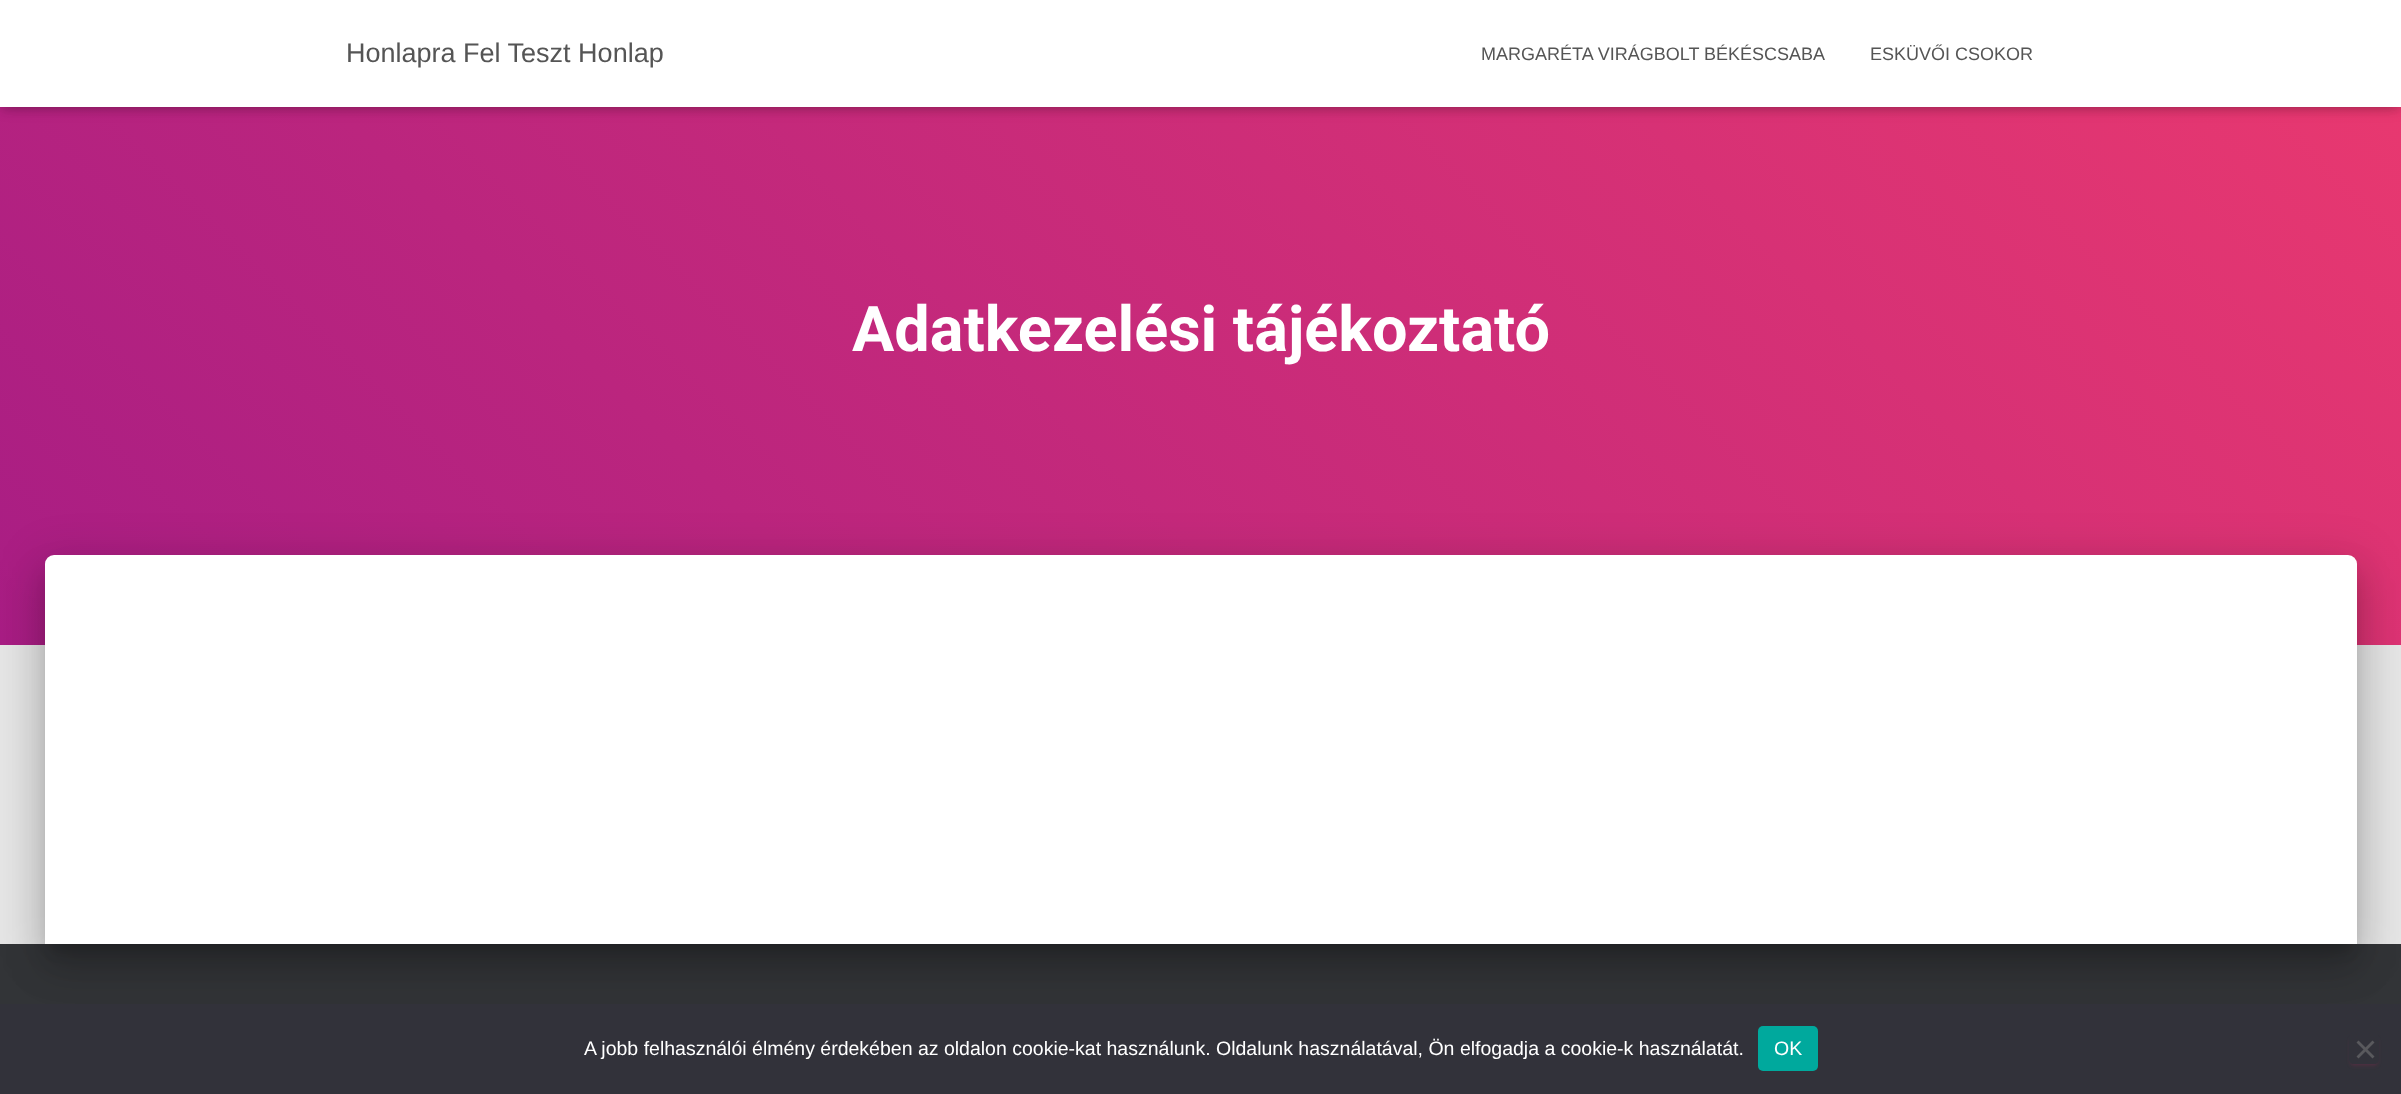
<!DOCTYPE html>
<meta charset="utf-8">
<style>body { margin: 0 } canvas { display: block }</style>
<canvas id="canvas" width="2401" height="1094"></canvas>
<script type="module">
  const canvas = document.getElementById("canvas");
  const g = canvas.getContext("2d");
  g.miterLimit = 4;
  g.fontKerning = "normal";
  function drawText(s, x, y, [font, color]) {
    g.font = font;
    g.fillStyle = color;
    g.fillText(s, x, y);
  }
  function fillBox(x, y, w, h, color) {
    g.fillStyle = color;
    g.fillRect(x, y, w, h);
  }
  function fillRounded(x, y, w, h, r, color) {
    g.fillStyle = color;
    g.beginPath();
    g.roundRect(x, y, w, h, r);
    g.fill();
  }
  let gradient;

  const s1 = ["27px Liberation Sans", "#555555"];
  const s2 = ["18px Liberation Sans", "#555555"];
  const s3 = ["bold 63px Roboto", "#FFFFFF"];
  const s4 = ["19.5px Liberation Sans", "#FFFFFF"];

  fillBox(0, 0, 2401, 1094, "#E5E5E5");
  gradient = g.createLinearGradient(439, 1084, 1962, -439);
  gradient.addColorStop(0, "#A81D84");
  gradient.addColorStop(1, "#EA396F");
  g.fillStyle = gradient;
  g.fillRect(0, 107, 2401, 538);
  g.fillStyle = "rgba(0, 0, 0, 0.1)";
  g.filter = "blur(4px)";
  g.beginPath();
  g.rect(3, 9, 2396, 101);
  g.fill();
  g.filter = "none";
  g.fillStyle = "rgba(0, 0, 0, 0.12)";
  g.filter = "blur(7.5px)";
  g.beginPath();
  g.rect(0, 2, 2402, 106);
  g.fill();
  g.filter = "none";
  g.fillStyle = "rgba(0, 0, 0, 0.42)";
  g.filter = "blur(7.5px)";
  g.beginPath();
  g.rect(9, 11, 2384, 88);
  g.fill();
  g.filter = "none";
  fillBox(0, 0, 2401, 107, "#FFFFFF");
  drawText("Honlapra Fel Teszt Honlap", 346, 62, s1);
  drawText("MARGARÉTA VIRÁGBOLT BÉKÉSCSABA", 1481, 60, s2);
  drawText("ESKÜVŐI CSOKOR", 1870, 60, s2);
  drawText("Adatkezelési tájékoztató", 852, 351, s3);
  fillBox(0, 944, 2401, 60, "#323437");
  g.fillStyle = "rgba(0, 0, 0, 0.2)";
  g.filter = "blur(7.5px)";
  g.beginPath();
  g.roundRect(53, 575, 2296, 373, 1.5);
  g.fill();
  g.filter = "none";
  g.fillStyle = "rgba(0, 0, 0, 0.12)";
  g.filter = "blur(22.5px)";
  g.beginPath();
  g.roundRect(38, 557, 2326, 403, 17);
  g.fill();
  g.filter = "none";
  g.fillStyle = "rgba(0, 0, 0, 0.14)";
  g.filter = "blur(18px)";
  g.beginPath();
  g.roundRect(42, 576, 2318, 395, 12);
  g.fill();
  g.filter = "none";
  g.fillStyle = "#FFFFFF";
  g.beginPath();
  g.roundRect(45, 555, 2312, 389, [9, 9, 0, 0]);
  g.fill();
  fillBox(0, 1004, 2401, 90, "#32323A");
  drawText("A jobb felhasználói élmény érdekében az oldalon cookie-kat használunk. Oldalunk használatával, Ön elfogadja a cookie-k használatát.", 584, 1055, s4);
  fillRounded(1758, 1026, 60, 45, 5, "#00A99D");
  drawText("OK", 1774, 1055, s4);
  g.save();
  g.beginPath();
  g.moveTo(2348, 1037);
  g.lineTo(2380, 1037);
  g.lineTo(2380, 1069);
  g.lineTo(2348, 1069);
  g.closePath();
  g.moveTo(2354, 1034);
  g.lineTo(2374, 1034);
  g.bezierCurveTo(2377, 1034, 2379, 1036, 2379, 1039);
  g.lineTo(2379, 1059);
  g.bezierCurveTo(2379, 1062, 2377, 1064, 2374, 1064);
  g.lineTo(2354, 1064);
  g.bezierCurveTo(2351, 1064, 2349, 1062, 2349, 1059);
  g.lineTo(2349, 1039);
  g.bezierCurveTo(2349, 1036, 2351, 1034, 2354, 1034);
  g.closePath();
  g.clip("evenodd");
  g.fillStyle = "rgba(142, 40, 79, 0.2)";
  g.filter = "blur(1px)";
  g.beginPath();
  g.roundRect(2352, 1041, 24, 24, 1.5);
  g.fill();
  g.filter = "none";
  g.restore();
  g.save();
  g.beginPath();
  g.moveTo(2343, 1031);
  g.lineTo(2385, 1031);
  g.lineTo(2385, 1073);
  g.lineTo(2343, 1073);
  g.closePath();
  g.moveTo(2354, 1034);
  g.lineTo(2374, 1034);
  g.bezierCurveTo(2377, 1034, 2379, 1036, 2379, 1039);
  g.lineTo(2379, 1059);
  g.bezierCurveTo(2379, 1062, 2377, 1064, 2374, 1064);
  g.lineTo(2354, 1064);
  g.bezierCurveTo(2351, 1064, 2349, 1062, 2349, 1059);
  g.lineTo(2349, 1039);
  g.bezierCurveTo(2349, 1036, 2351, 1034, 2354, 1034);
  g.closePath();
  g.clip("evenodd");
  g.fillStyle = "rgba(142, 40, 79, 0.14)";
  g.filter = "blur(1.5px)";
  g.beginPath();
  g.roundRect(2349, 1037, 30, 30, 5);
  g.fill();
  g.filter = "none";
  g.restore();
  g.fillStyle = "#59595D";
  g.beginPath();
  g.moveTo(2372.5, 1040.5);
  g.lineTo(2374.5, 1042.5);
  g.lineTo(2358.5, 1058.5);
  g.lineTo(2356.5, 1056.5);
  g.closePath();
  g.fill();
  g.beginPath();
  g.moveTo(2356.5, 1042.5);
  g.lineTo(2358.5, 1040.5);
  g.lineTo(2374.5, 1056.5);
  g.lineTo(2372.5, 1058.5);
  g.closePath();
  g.fill();
</script>
